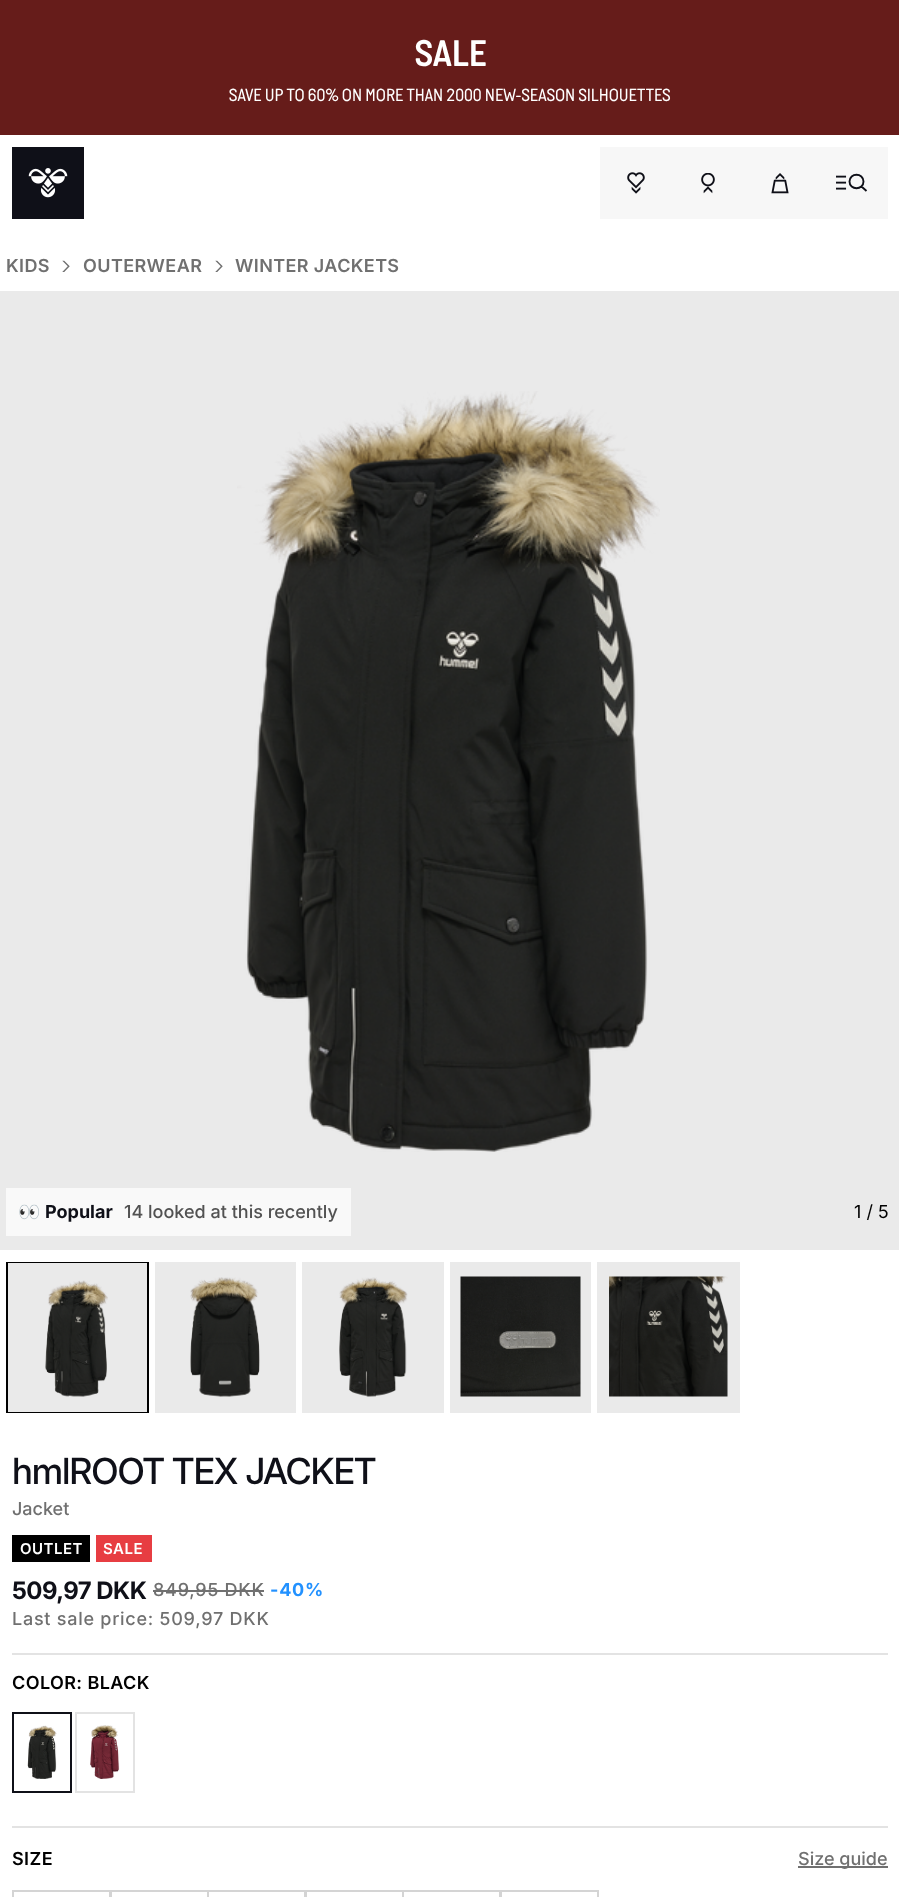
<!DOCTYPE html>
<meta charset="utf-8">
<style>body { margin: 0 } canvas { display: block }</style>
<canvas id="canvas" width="899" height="1897"></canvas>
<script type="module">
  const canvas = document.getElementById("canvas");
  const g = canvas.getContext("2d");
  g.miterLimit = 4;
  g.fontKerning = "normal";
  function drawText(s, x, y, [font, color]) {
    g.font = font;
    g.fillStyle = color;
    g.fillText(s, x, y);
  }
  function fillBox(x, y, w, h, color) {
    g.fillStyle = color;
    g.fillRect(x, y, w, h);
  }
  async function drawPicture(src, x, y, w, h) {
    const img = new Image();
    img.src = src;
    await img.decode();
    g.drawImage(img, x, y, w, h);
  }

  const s1 = ["600 38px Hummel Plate", "#FFFFFF"];
  const s2 = ["18px Hummel Plate", "#FFFFFF"];
  const s3 = ["600 18px Inter", "#707070"];
  const s4 = ["bold 18px Noto Color Emoji", "#0F1018"];
  const s5 = ["bold 18px 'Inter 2'", "#0F1018"];
  const s6 = ["500 18px 'Inter 2'", "#525252"];
  const s7 = ["18px Inter", "#000000"];
  const s8 = ["500 36px Inter", "#0F1018"];
  const s9 = ["500 18px 'Inter 2'", "#707070"];
  const s10 = ["600 15px Inter", "#FFFFFF"];
  const s11 = ["bold 24px Inter", "#0F1018"];
  const s12 = ["bold 18px 'Inter 2'", "#2291FF"];
  const s13 = ["600 18px Inter", "#000000"];

  fillBox(0, 0, 899, 1897, "#FFFFFF");
  fillBox(0, 0, 899, 135, "#661C1A");
  drawText("SALE", 415, 66, s1);
  drawText("SAVE UP TO 60% ON MORE THAN 2000 NEW-SEASON SILHOUETTES", 229, 101, s2);
  fillBox(12, 147, 72, 72, "#0F1018");
  await drawPicture("pic1.png", 28, 168, 40, 30);
  fillBox(600, 147, 144, 72, "#F7F7F7");
  await drawPicture("pic2.png", 627, 172, 18, 22);
  await drawPicture("pic3.png", 701, 173, 14, 21);
  fillBox(744, 147, 144, 72, "#F7F7F7");
  await drawPicture("pic4.png", 771, 173, 18, 21);
  await drawPicture("pic5.png", 836, 175, 11, 15);
  g.beginPath();
  g.moveTo(866.5, 191);
  g.lineTo(861.5, 186.5);
  g.moveTo(863.5, 181.5);
  g.bezierCurveTo(863.5, 190.5, 849.5, 190.5, 849.5, 181.5);
  g.bezierCurveTo(849.5, 172.5, 863.5, 172.5, 863.5, 181.5);
  g.closePath();
  g.strokeStyle = "#0F1018";
  g.lineWidth = 1.9;
  g.stroke();
  g.letterSpacing = "0.4px";
  drawText("KIDS", 6, 272, s3);
  await drawPicture("pic6.png", 62, 260, 8, 12);
  drawText("OUTERWEAR", 83, 272, s3);
  await drawPicture("pic6.png", 215, 260, 8, 12);
  drawText("WINTER JACKETS", 235, 272, s3);
  fillBox(0, 291, 899, 959, "#EAEAEA");
  await drawPicture("pic7.png", 237, 391, 423, 761);
  fillBox(6, 1188, 345, 48, "#F9F9F9");
  g.letterSpacing = "0px";
  drawText("👀", 18, 1218, s4);
  drawText("Popular", 45, 1218, s5);
  drawText("14 looked at this recently", 124, 1218, s6);
  drawText("1 / 5", 854, 1218, s7);
  g.strokeStyle = "#000000";
  g.lineWidth = 2;
  g.strokeRect(7, 1263, 141, 149);
  fillBox(8, 1263, 139, 149, "#EAEAEA");
  await drawPicture("pic8.png", 45, 1280, 63, 117);
  fillBox(155, 1262, 141, 151, "#EAEAEA");
  await drawPicture("pic9.png", 190, 1277, 70, 120);
  fillBox(302, 1262, 142, 151, "#EAEAEA");
  await drawPicture("pic10.png", 339, 1277, 69, 120);
  fillBox(450, 1262, 141, 151, "#EAEAEA");
  await drawPicture("pic11.png", 460, 1276, 121, 121);
  fillBox(597, 1262, 143, 151, "#EAEAEA");
  await drawPicture("pic12.png", 609, 1276, 119, 121);
  g.letterSpacing = "-1.1px";
  drawText("hmlROOT TEX JACKET", 12, 1484, s8);
  g.letterSpacing = "0px";
  drawText("Jacket", 12, 1515, s9);
  fillBox(12, 1535, 78, 27, "#000000");
  g.letterSpacing = "0.5px";
  drawText("OUTLET", 20, 1554, s10);
  fillBox(96, 1535, 56, 27, "#E73D42");
  drawText("SALE", 103, 1554, s10);
  g.letterSpacing = "-0.5px";
  drawText("509,97 DKK", 12, 1599, s11);
  g.letterSpacing = "0.75px";
  drawText("849,95 DKK", 153, 1596, s9);
  fillBox(153, 1590, 111, 2, "#707070");
  drawText("-40%", 270, 1596, s12);
  drawText("Last sale price: 509,97 DKK", 12, 1625, s9);
  fillBox(12, 1653, 876, 2, "#E3E3E3");
  g.letterSpacing = "0.4px";
  drawText("COLOR: BLACK", 12, 1689, s13);
  g.strokeStyle = "#0F1018";
  g.strokeRect(13, 1713, 58, 79);
  await drawPicture("pic13.png", 27, 1725, 30, 54);
  g.strokeStyle = "#E3E3E3";
  g.strokeRect(76, 1713, 58, 79);
  await drawPicture("pic14.png", 90, 1725, 30, 54);
  fillBox(12, 1826, 876, 2, "#E3E3E3");
  drawText("SIZE", 12, 1865, s13);
  fillBox(798, 1866, 90, 2, "#707070");
  g.letterSpacing = "0px";
  drawText("Size guide", 798, 1865, s9);
  g.strokeStyle = "#D4D4D4";
  g.strokeRect(13, 1891, 97, 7);
  fillBox(110, 1892, 1, 5, "#FFFFFF");
  g.strokeRect(111, 1891, 97, 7);
  fillBox(207, 1892, 2, 5, "#FFFFFF");
  g.strokeRect(208, 1891, 97, 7);
  fillBox(305, 1892, 1, 5, "#FFFFFF");
  g.strokeRect(306, 1891, 97, 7);
  fillBox(402, 1892, 2, 5, "#FFFFFF");
  g.strokeRect(403, 1891, 97, 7);
  fillBox(500, 1892, 1, 5, "#FFFFFF");
  g.strokeRect(501, 1891, 97, 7);
</script>
